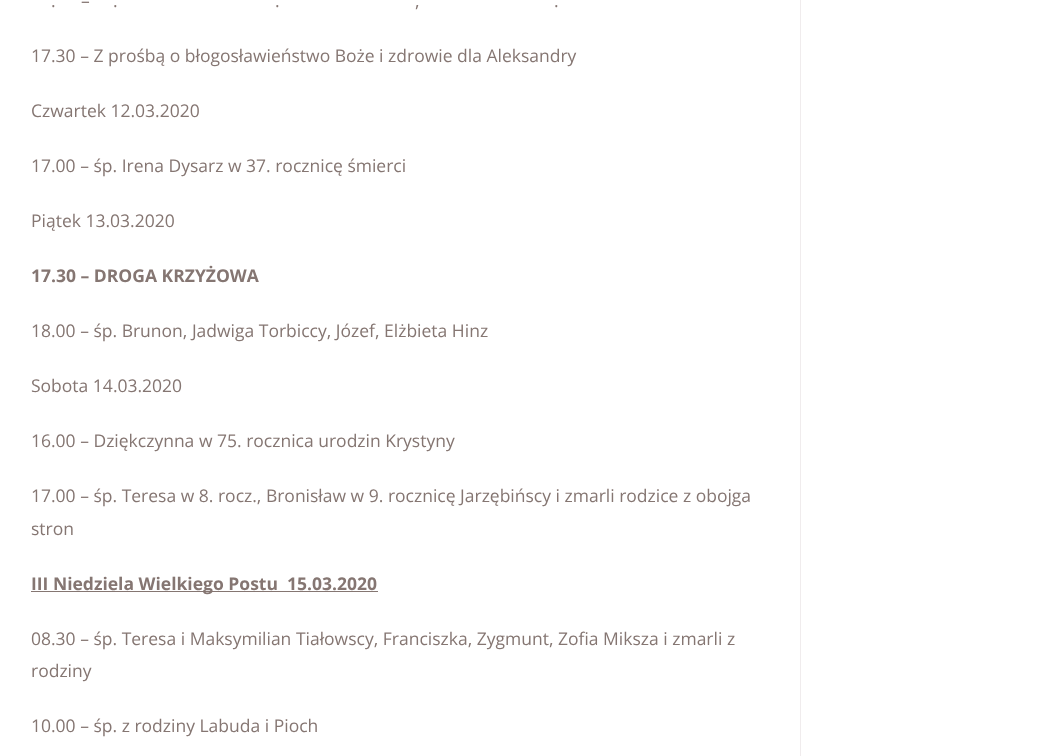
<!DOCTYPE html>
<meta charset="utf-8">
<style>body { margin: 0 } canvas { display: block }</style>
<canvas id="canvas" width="1047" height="756"></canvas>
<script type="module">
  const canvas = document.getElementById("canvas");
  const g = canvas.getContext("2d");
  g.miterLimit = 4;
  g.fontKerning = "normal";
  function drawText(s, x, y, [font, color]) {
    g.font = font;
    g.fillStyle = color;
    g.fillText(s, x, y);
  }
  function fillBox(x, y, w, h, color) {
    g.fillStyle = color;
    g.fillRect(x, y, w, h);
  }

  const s1 = ["17.5px Open Sans", "#857672"];
  const s2 = ["bold 17.5px Open Sans", "#857672"];

  fillBox(0, 0, 1047, 756, "#FFFFFF");
  fillBox(800, 0, 1, 756, "#F0ECED");
  drawText("–", 81, 7, s1);
  drawText(".", 51, 7, s1);
  drawText(".", 113, 7, s1);
  drawText(".", 275, 7, s1);
  drawText(",", 415, 7, s1);
  drawText(".", 554, 7, s1);
  drawText("17.30 – Z prośbą o błogosławieństwo Boże i zdrowie dla Aleksandry", 31, 62, s1);
  drawText("Czwartek 12.03.2020", 31, 117, s1);
  drawText("17.00 – śp. Irena Dysarz w 37. rocznicę śmierci", 31, 172, s1);
  drawText("Piątek 13.03.2020", 31, 227, s1);
  drawText("17.30 – DROGA KRZYŻOWA", 31, 282, s2);
  drawText("18.00 – śp. Brunon, Jadwiga Torbiccy, Józef, Elżbieta Hinz", 31, 337, s1);
  drawText("Sobota 14.03.2020", 31, 392, s1);
  drawText("16.00 – Dziękczynna w 75. rocznica urodzin Krystyny", 31, 447, s1);
  drawText("17.00 – śp. Teresa w 8. rocz., Bronisław w 9. rocznicę Jarzębińscy i zmarli rodzice z obojga", 31, 502, s1);
  drawText("stron", 31, 535, s1);
  fillBox(31, 591, 347, 1, "#857672");
  drawText("III Niedziela Wielkiego Postu  15.03.2020", 31, 590, s2);
  drawText("08.30 – śp. Teresa i Maksymilian Tiałowscy, Franciszka, Zygmunt, Zofia Miksza i zmarli z", 31, 645, s1);
  drawText("rodziny", 31, 677, s1);
  drawText("10.00 – śp. z rodziny Labuda i Pioch", 31, 732, s1);
</script>
